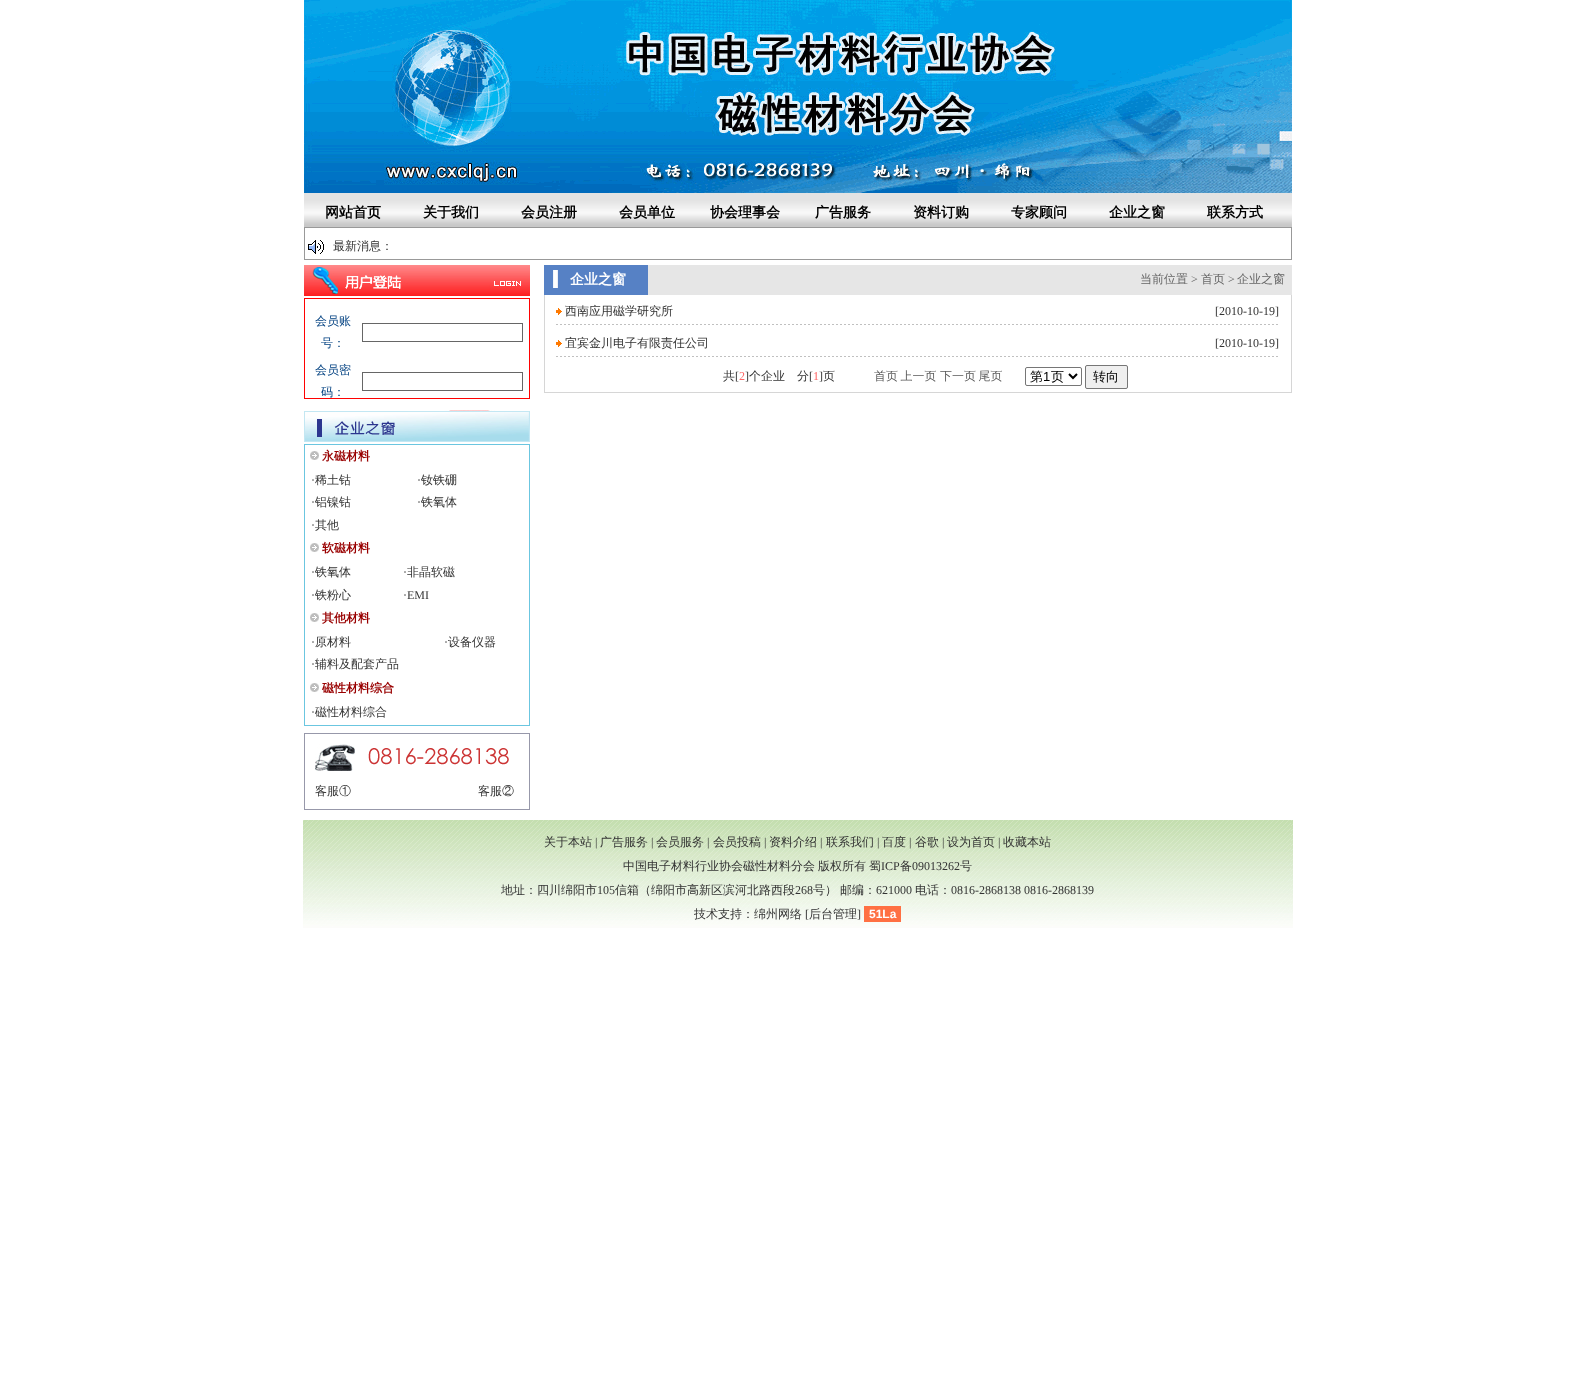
<!DOCTYPE html>
<meta charset="utf-8">
<style>body { margin: 0 } canvas { display: block }</style>
<canvas id="canvas" width="1595" height="1378"></canvas>
<script type="module">
  const canvas = document.getElementById("canvas");
  const g = canvas.getContext("2d");
  g.miterLimit = 4;
  g.fontKerning = "normal";
  function drawText(s, x, y, [font, color]) {
    g.font = font;
    g.fillStyle = color;
    g.fillText(s, x, y);
  }
  function fillBox(x, y, w, h, color) {
    g.fillStyle = color;
    g.fillRect(x, y, w, h);
  }
  async function drawPicture(src, x, y, w, h) {
    const img = new Image();
    img.src = src;
    await img.decode();
    g.drawImage(img, x, y, w, h);
  }

  const s1 = ["bold 14px WenQuanYi Zen Hei", "#000000"];
  const s2 = ["500 12px WenQuanYi Zen Hei", "#333333"];
  const s3 = ["500 12px WenQuanYi Zen Hei", "#004080"];
  const s4 = ["bold 12px WenQuanYi Zen Hei", "#990000"];
  const s5 = ["12px Liberation Serif", "#333333"];
  const s6 = ["bold 14px WenQuanYi Zen Hei", "#FFFFFF"];
  const s7 = ["500 12px WenQuanYi Zen Hei", "#666666"];
  const s8 = ["12px Liberation Serif", "#666666"];
  const s9 = ["12px Liberation Serif", "#FF6666"];
  const s10 = ["500 12px WenQuanYi Zen Hei", "#5A5A5A"];
  const s11 = ["500 13px WenQuanYi Zen Hei", "#000000"];
  const s12 = ["13px Liberation Sans", "#000000"];
  const s13 = ["bold 12px Liberation Sans", "#FFFFFF"];

  fillBox(0, 0, 1595, 1378, "#FFFFFF");
  await drawPicture("pic1.png", 304, 0, 988, 193);
  await drawPicture("pic2.png", 304, 193, 988, 34);
  drawText("网站首页", 325, 217, s1);
  drawText("关于我们", 423, 217, s1);
  drawText("会员注册", 521, 217, s1);
  drawText("会员单位", 619, 217, s1);
  drawText("协会理事会", 710, 217, s1);
  drawText("广告服务", 815, 217, s1);
  drawText("资料订购", 913, 217, s1);
  drawText("专家顾问", 1011, 217, s1);
  drawText("企业之窗", 1109, 217, s1);
  drawText("联系方式", 1207, 217, s1);
  g.strokeStyle = "#999999";
  g.strokeRect(304.5, 227.5, 987, 32);
  await drawPicture("pic3.png", 308, 240, 16, 14);
  drawText("最新消息：", 333, 250, s2);
  await drawPicture("pic4.png", 304, 265, 226, 31);
  g.strokeStyle = "#FF0101";
  g.strokeRect(304.5, 298.5, 225, 100);
  drawText("会员账", 315, 325, s3);
  drawText("号：", 321, 347, s3);
  g.strokeStyle = "#666666";
  g.strokeRect(362.5, 323.5, 160, 18);
  drawText("会员密", 315, 374, s3);
  drawText("码：", 321, 396, s3);
  g.strokeRect(362.5, 372.5, 160, 18);
  await drawPicture("pic5.png", 444, 410, 51, 1);
  await drawPicture("pic6.png", 304, 411, 226, 31);
  g.strokeStyle = "#6BC6E0";
  g.strokeRect(304.5, 444.5, 225, 281);
  await drawPicture("pic7.png", 310, 451, 9, 9);
  drawText("永磁材料", 322, 460, s4);
  drawText("·", 311, 484, s5);
  drawText("稀土钴", 315, 484, s2);
  drawText("·", 417, 484, s5);
  drawText("钕铁硼", 421, 484, s2);
  drawText("·", 311, 506, s5);
  drawText("铝镍钴", 315, 506, s2);
  drawText("·", 417, 506, s5);
  drawText("铁氧体", 421, 506, s2);
  drawText("·", 311, 529, s5);
  drawText("其他", 315, 529, s2);
  await drawPicture("pic7.png", 310, 543, 9, 9);
  drawText("软磁材料", 322, 552, s4);
  drawText("·", 311, 576, s5);
  drawText("铁氧体", 315, 576, s2);
  drawText("·", 403, 576, s5);
  drawText("非晶软磁", 407, 576, s2);
  drawText("·", 311, 599, s5);
  drawText("铁粉心", 315, 599, s2);
  drawText("·EMI", 403, 599, s5);
  await drawPicture("pic7.png", 310, 613, 9, 9);
  drawText("其他材料", 322, 622, s4);
  drawText("·", 311, 646, s5);
  drawText("原材料", 315, 646, s2);
  drawText("·", 444, 646, s5);
  drawText("设备仪器", 448, 646, s2);
  drawText("·", 311, 668, s5);
  drawText("辅料及配套产品", 315, 668, s2);
  await drawPicture("pic7.png", 310, 683, 9, 9);
  drawText("磁性材料综合", 322, 692, s4);
  drawText("·", 311, 716, s5);
  drawText("磁性材料综合", 315, 716, s2);
  g.strokeStyle = "#9798AA";
  g.strokeRect(304.5, 733.5, 225, 76);
  await drawPicture("pic8.png", 315, 744, 40, 27);
  await drawPicture("pic9.png", 368, 748, 141, 17);
  drawText("客服①", 315, 795, s2);
  drawText("客服②", 478, 795, s2);
  fillBox(648, 265, 644, 30, "#E6E6E6");
  await drawPicture("pic10.png", 544, 265, 104, 30);
  drawText("企业之窗", 570, 284, s6);
  drawText("当前位置", 1140, 283, s7);
  drawText(">", 1191, 283, s8);
  drawText("首页", 1201, 283, s7);
  drawText(">", 1228, 283, s8);
  drawText("企业之窗", 1237, 283, s7);
  fillBox(1291, 295, 1, 98, "#D6D6D6");
  fillBox(544, 392, 748, 1, "#D6D6D6");
  fillBox(544, 295, 1, 98, "#D6D6D6");
  await drawPicture("pic11.png", 556, 308, 6, 7);
  drawText("西南应用磁学研究所", 565, 315, s2);
  drawText("[2010-10-19]", 1215, 315, s5);
  await drawPicture("pic12.png", 556, 324, 722, 1);
  await drawPicture("pic11.png", 556, 340, 6, 7);
  drawText("宜宾金川电子有限责任公司", 565, 347, s2);
  drawText("[2010-10-19]", 1215, 347, s5);
  await drawPicture("pic12.png", 556, 356, 722, 1);
  drawText("共", 723, 380, s2);
  drawText("[", 735, 380, s5);
  drawText("2", 739, 380, s9);
  drawText("]", 745, 380, s5);
  drawText("个企业　分", 749, 380, s2);
  drawText("[", 809, 380, s5);
  drawText("1", 813, 380, s9);
  drawText("]", 819, 380, s5);
  drawText("页", 823, 380, s2);
  g.wordSpacing = "-1px";
  drawText("首页 上一页", 874, 380, s10);
  drawText("下一页 尾页", 940, 380, s10);
  g.beginPath();
  g.roundRect(1025.5, 367.5, 56, 18, 1.5);
  g.strokeStyle = "#767676";
  g.stroke();
  g.beginPath();
  g.moveTo(1069, 374);
  g.lineTo(1073, 378);
  g.lineTo(1077, 374);
  g.strokeStyle = "#000000";
  g.lineWidth = 2;
  g.stroke();
  g.wordSpacing = "0px";
  drawText("第", 1030, 381, s11);
  drawText("1", 1043, 381, s12);
  drawText("页", 1051, 381, s11);
  g.fillStyle = "#EFEFEF";
  g.beginPath();
  g.roundRect(1085.5, 365.5, 42, 23, 1.5);
  g.fill();
  g.strokeStyle = "#767676";
  g.lineWidth = 1;
  g.stroke();
  drawText("转向", 1093, 381, s11);
  await drawPicture("pic13.png", 303, 820, 990, 108);
  drawText("关于本站", 544, 846, s2);
  drawText("|", 595, 846, s5);
  drawText("广告服务", 600, 846, s2);
  drawText("|", 651, 846, s5);
  drawText("会员服务", 656, 846, s2);
  drawText("|", 707, 846, s5);
  drawText("会员投稿", 713, 846, s2);
  drawText("|", 764, 846, s5);
  drawText("资料介绍", 769, 846, s2);
  drawText("|", 820, 846, s5);
  drawText("联系我们", 826, 846, s2);
  drawText("|", 877, 846, s5);
  drawText("百度", 882, 846, s2);
  drawText("|", 909, 846, s5);
  drawText("谷歌", 915, 846, s2);
  drawText("|", 942, 846, s5);
  drawText("设为首页", 947, 846, s2);
  drawText("|", 998, 846, s5);
  drawText("收藏本站", 1003, 846, s2);
  drawText("中国电子材料行业协会磁性材料分会", 623, 870, s2);
  drawText("版权所有", 818, 870, s2);
  drawText("蜀", 869, 870, s2);
  drawText("ICP", 881, 870, s5);
  drawText("备", 900, 870, s2);
  drawText("09013262", 912, 870, s5);
  drawText("号", 960, 870, s2);
  drawText("地址：四川绵阳市", 501, 894, s2);
  drawText("105", 597, 894, s5);
  drawText("信箱（绵阳市高新区滨河北路西段", 615, 894, s2);
  drawText("268", 795, 894, s5);
  drawText("号）", 813, 894, s2);
  drawText("邮编：", 840, 894, s2);
  drawText("621000", 876, 894, s5);
  drawText("电话：", 915, 894, s2);
  drawText("0816-2868138 0816-2868139", 951, 894, s5);
  drawText("技术支持：绵州网络", 694, 918, s2);
  drawText("[", 805, 918, s5);
  drawText("后台管理", 809, 918, s2);
  drawText("]", 857, 918, s5);
  fillBox(864, 906, 37, 16, "#FF7043");
  drawText("51La", 869, 918, s13);
</script>
